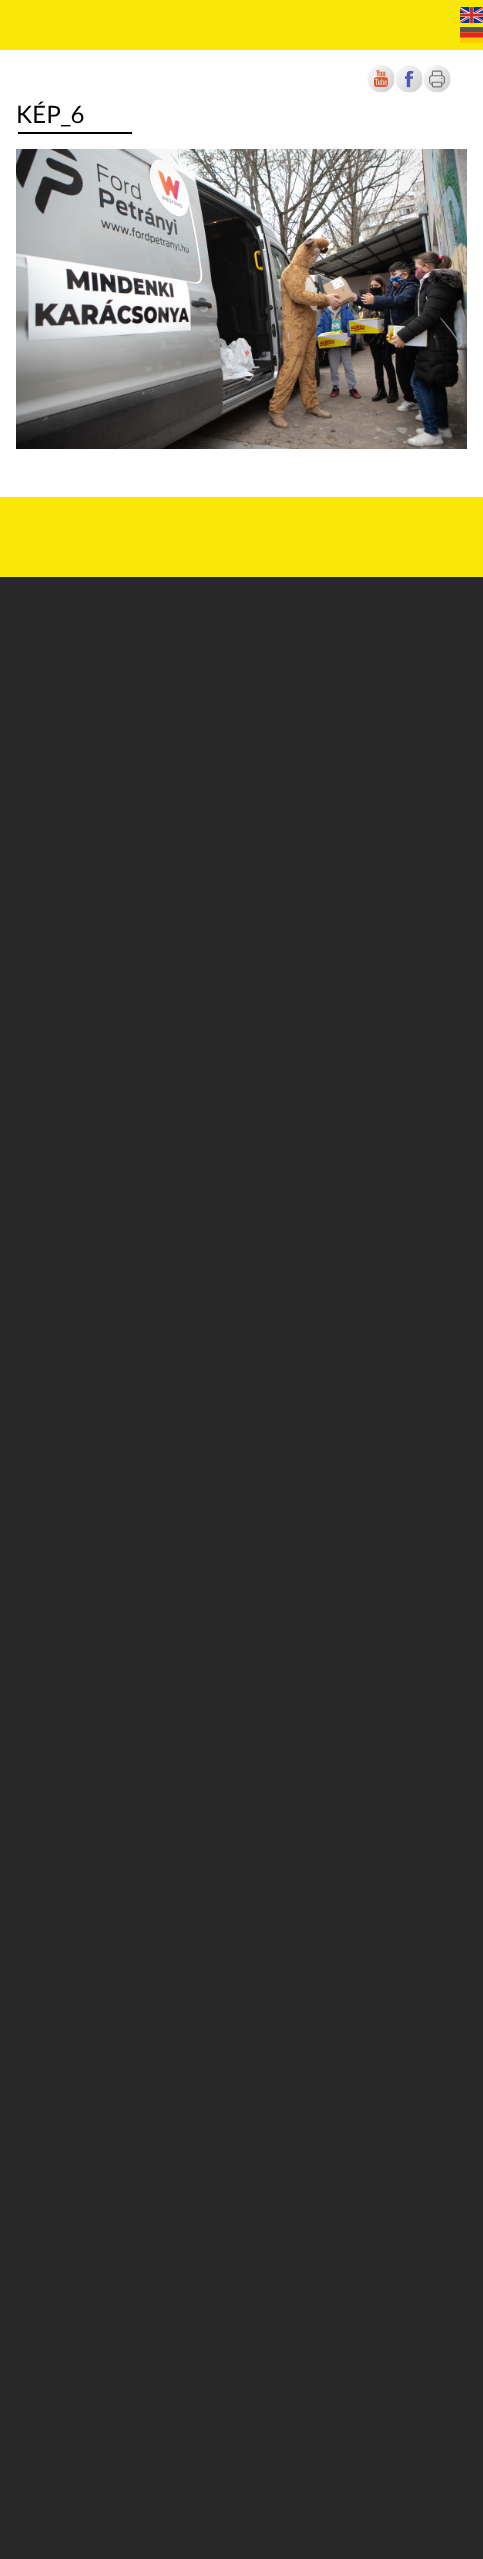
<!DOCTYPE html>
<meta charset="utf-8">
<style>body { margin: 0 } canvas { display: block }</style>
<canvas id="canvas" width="483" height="2559"></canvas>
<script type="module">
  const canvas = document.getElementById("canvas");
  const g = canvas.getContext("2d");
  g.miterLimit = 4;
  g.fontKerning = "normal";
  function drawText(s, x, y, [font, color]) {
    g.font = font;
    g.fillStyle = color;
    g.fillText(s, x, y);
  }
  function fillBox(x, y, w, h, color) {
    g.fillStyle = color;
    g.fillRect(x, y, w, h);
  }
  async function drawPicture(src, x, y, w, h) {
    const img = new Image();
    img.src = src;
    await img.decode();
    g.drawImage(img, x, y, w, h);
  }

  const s1 = ["24px Lato", "#000000"];

  fillBox(0, 0, 483, 2559, "#282828");
  fillBox(0, 50, 483, 447, "#FFFFFF");
  fillBox(0, 0, 483, 50, "#F9E805");
  await drawPicture("pic1.png", 460, 7, 23, 16);
  await drawPicture("pic2.png", 460, 27, 23, 16);
  await drawPicture("pic3.png", 367, 65, 28, 28);
  await drawPicture("pic4.png", 395, 65, 28, 28);
  await drawPicture("pic5.png", 423, 65, 28, 28);
  drawText("KÉP_6", 16, 123, s1);
  fillBox(18, 132, 114, 2, "#000000");
  await drawPicture("pic6.png", 16, 149, 451, 300);
  fillBox(0, 497, 483, 80, "#F9E805");
</script>
